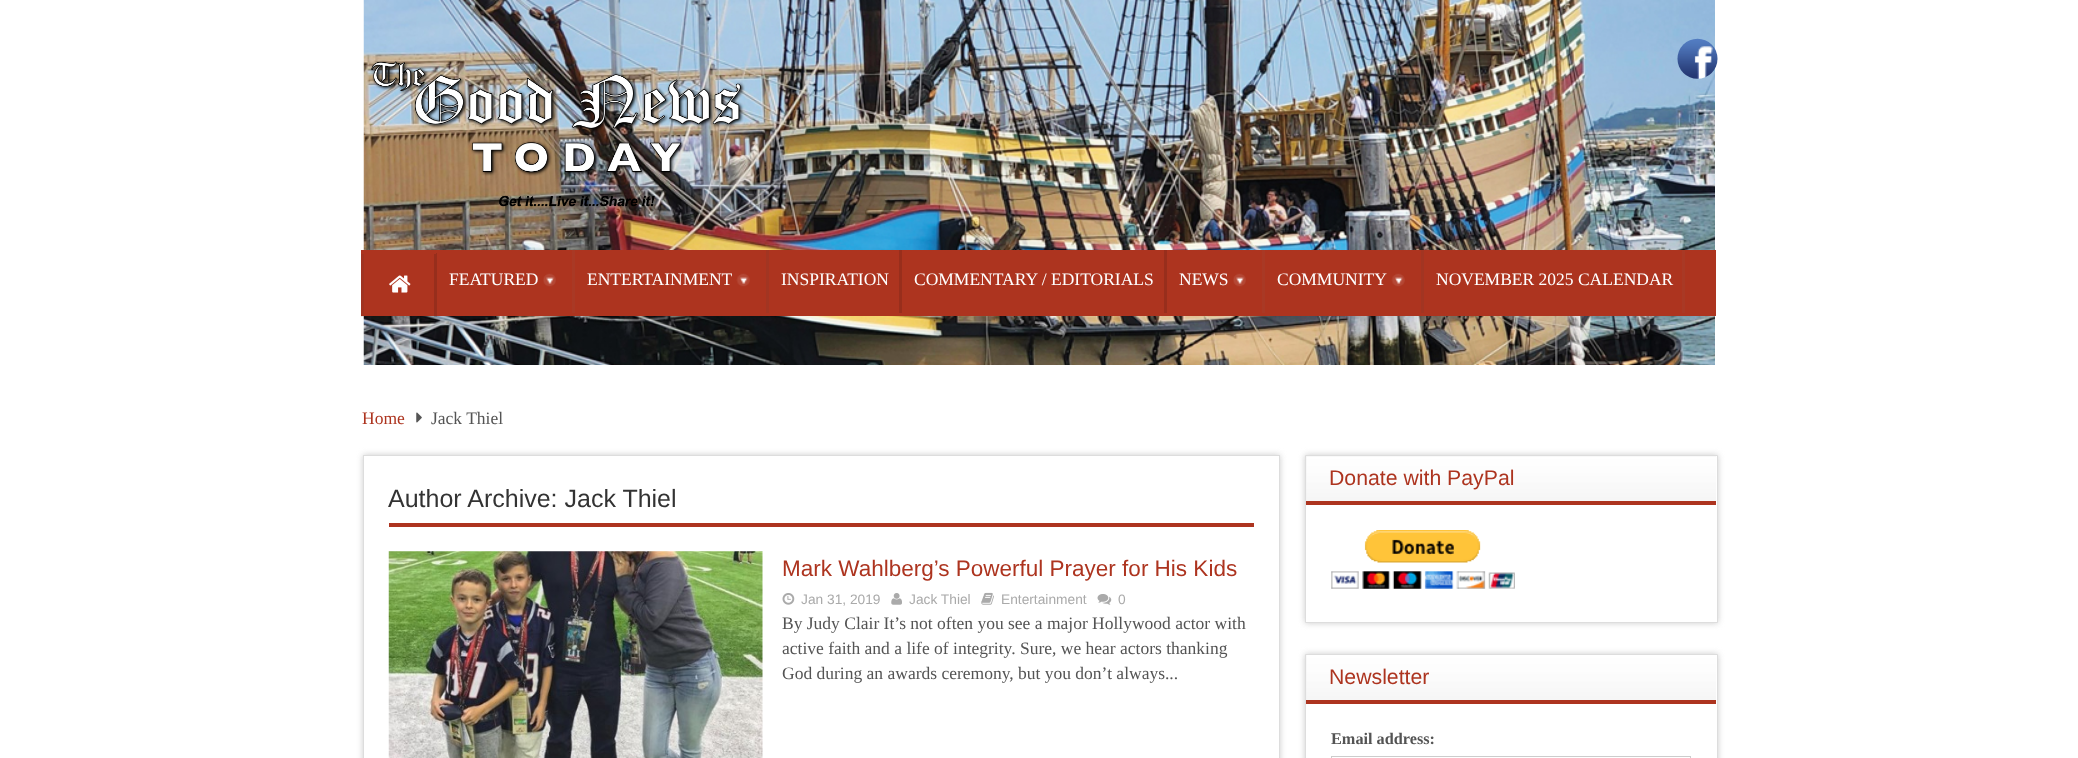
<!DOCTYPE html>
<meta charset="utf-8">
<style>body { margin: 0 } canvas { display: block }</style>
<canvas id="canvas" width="2078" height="758"></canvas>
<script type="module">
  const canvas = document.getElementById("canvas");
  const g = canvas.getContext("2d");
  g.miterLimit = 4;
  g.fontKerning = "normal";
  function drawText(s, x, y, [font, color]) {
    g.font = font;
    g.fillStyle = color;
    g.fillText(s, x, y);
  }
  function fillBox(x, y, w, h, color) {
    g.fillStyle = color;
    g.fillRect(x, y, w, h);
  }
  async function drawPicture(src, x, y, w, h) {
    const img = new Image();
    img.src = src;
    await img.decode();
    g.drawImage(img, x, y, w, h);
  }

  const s1 = ["17.5px Liberation Serif", "#FFFFFF"];
  const s2 = ["17.5px Liberation Serif", "#AD341F"];
  const s3 = ["17.5px Liberation Serif", "#545454"];
  const s4 = ["25px Liberation Sans", "#333333"];
  const s5 = ["22.5px Liberation Sans", "#AD341F"];
  const s6 = ["13.75px Liberation Sans", "#AAAAAA"];
  const s7 = ["21.25px Liberation Sans", "#AD341F"];
  const s8 = ["bold 16.25px Liberation Serif", "#545454"];

  fillBox(0, 0, 2078, 758, "#FFFFFF");
  await drawPicture("pic1.png", 363, 0, 1352, 365);
  await drawPicture("pic2.png", 370, 60, 375, 147);
  await drawPicture("pic3.png", 1677, 38, 41, 41);
  fillBox(361, 250, 1355, 66, "#AD341F");
  fillBox(361, 250, 3, 67, "rgba(61, 61, 61, 0.1)");
  fillBox(434, 253, 3, 64, "rgba(8, 8, 8, 0.13)");
  fillBox(361, 250, 75, 4, "#AD341F");
  await drawPicture("pic4.png", 389, 275, 22, 18);
  fillBox(572, 250, 3, 63, "#A93925");
  await drawPicture("pic5.png", 543, 273, 13, 14);
  drawText("FEATURED", 449, 285, s1);
  fillBox(766, 250, 3, 63, "#A23522");
  await drawPicture("pic6.png", 736, 273, 14, 14);
  drawText("ENTERTAINMENT", 587, 285, s1);
  fillBox(899, 250, 3, 63, "#982E1C");
  drawText("INSPIRATION", 781, 285, s1);
  fillBox(1164, 250, 3, 63, "#982E1C");
  drawText("COMMENTARY / EDITORIALS", 914, 285, s1);
  fillBox(1262, 250, 3, 63, "#A93925");
  await drawPicture("pic7.png", 1233, 273, 13, 14);
  drawText("NEWS", 1179, 285, s1);
  fillBox(1421, 250, 3, 63, "#A23522");
  await drawPicture("pic6.png", 1391, 273, 14, 14);
  drawText("COMMUNITY", 1277, 285, s1);
  fillBox(1682, 250, 3, 63, "#A93925");
  drawText("NOVEMBER 2025 CALENDAR", 1436, 285, s1);
  drawText("Home", 362, 424, s2);
  await drawPicture("pic8.png", 416, 412, 6, 11);
  drawText("Jack Thiel", 431, 424, s3);
  g.save();
  g.beginPath();
  g.moveTo(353, 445);
  g.lineTo(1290, 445);
  g.lineTo(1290, 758);
  g.lineTo(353, 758);
  g.closePath();
  g.moveTo(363, 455);
  g.lineTo(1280, 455);
  g.lineTo(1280, 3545);
  g.lineTo(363, 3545);
  g.closePath();
  g.clip("evenodd");
  g.fillStyle = "#CACACA";
  g.filter = "blur(3px)";
  g.beginPath();
  g.rect(363, 455, 917, 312);
  g.fill();
  g.filter = "none";
  g.restore();
  g.strokeStyle = "#DDDDDD";
  g.strokeRect(363.5, 455.5, 916, 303);
  fillBox(389, 523, 865, 4, "#AD341F");
  drawText("Author Archive: Jack Thiel", 388, 507, s4);
  await drawPicture("pic9.png", 388, 551, 375, 207);
  drawText("Mark Wahlberg’s Powerful Prayer for His Kids", 782, 576, s5);
  await drawPicture("pic10.png", 782, 593, 13, 12);
  drawText("Jan 31, 2019", 801, 604, s6);
  await drawPicture("pic11.png", 891, 593, 11, 12);
  drawText("Jack Thiel", 909, 604, s6);
  await drawPicture("pic12.png", 981, 592, 13, 13);
  drawText("Entertainment", 1001, 604, s6);
  await drawPicture("pic13.png", 1097, 594, 15, 11);
  drawText("0", 1118, 604, s6);
  drawText("By Judy Clair It’s not often you see a major Hollywood actor with", 782, 629, s3);
  drawText("active faith and a life of integrity. Sure, we hear actors thanking", 782, 654, s3);
  drawText("God during an awards ceremony, but you don’t always...", 782, 679, s3);
  g.fillStyle = "#CACACA";
  g.filter = "blur(3px)";
  g.beginPath();
  g.rect(1305, 455, 413, 168);
  g.fill();
  g.filter = "none";
  g.fillStyle = "#FFFFFF";
  g.beginPath();
  g.rect(1305.5, 455.5, 412, 167);
  g.fill();
  g.stroke();
  fillBox(1306, 456, 410, 45, "#F1F1F1");
  await drawPicture("pic14.png", 1306, 456, 410, 45);
  fillBox(1306, 501, 410, 4, "#AD341F");
  drawText("Donate with PayPal", 1329, 485, s7);
  await drawPicture("pic15.png", 1331, 530, 184, 59);
  g.fillStyle = "#CACACA";
  g.filter = "blur(3px)";
  g.beginPath();
  g.rect(1305, 654, 413, 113);
  g.fill();
  g.filter = "none";
  g.fillStyle = "#FFFFFF";
  g.beginPath();
  g.rect(1305.5, 654.5, 412, 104);
  g.fill();
  g.stroke();
  fillBox(1306, 655, 1, 45, "#F1F1F1");
  await drawPicture("pic16.png", 1306, 655, 410, 45);
  fillBox(1306, 700, 410, 4, "#AD341F");
  drawText("Newsletter", 1329, 684, s7);
  drawText("Email address:", 1331, 744, s8);
  g.strokeStyle = "#CCCCCC";
  g.strokeRect(1331.5, 756.5, 359, 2);
</script>
